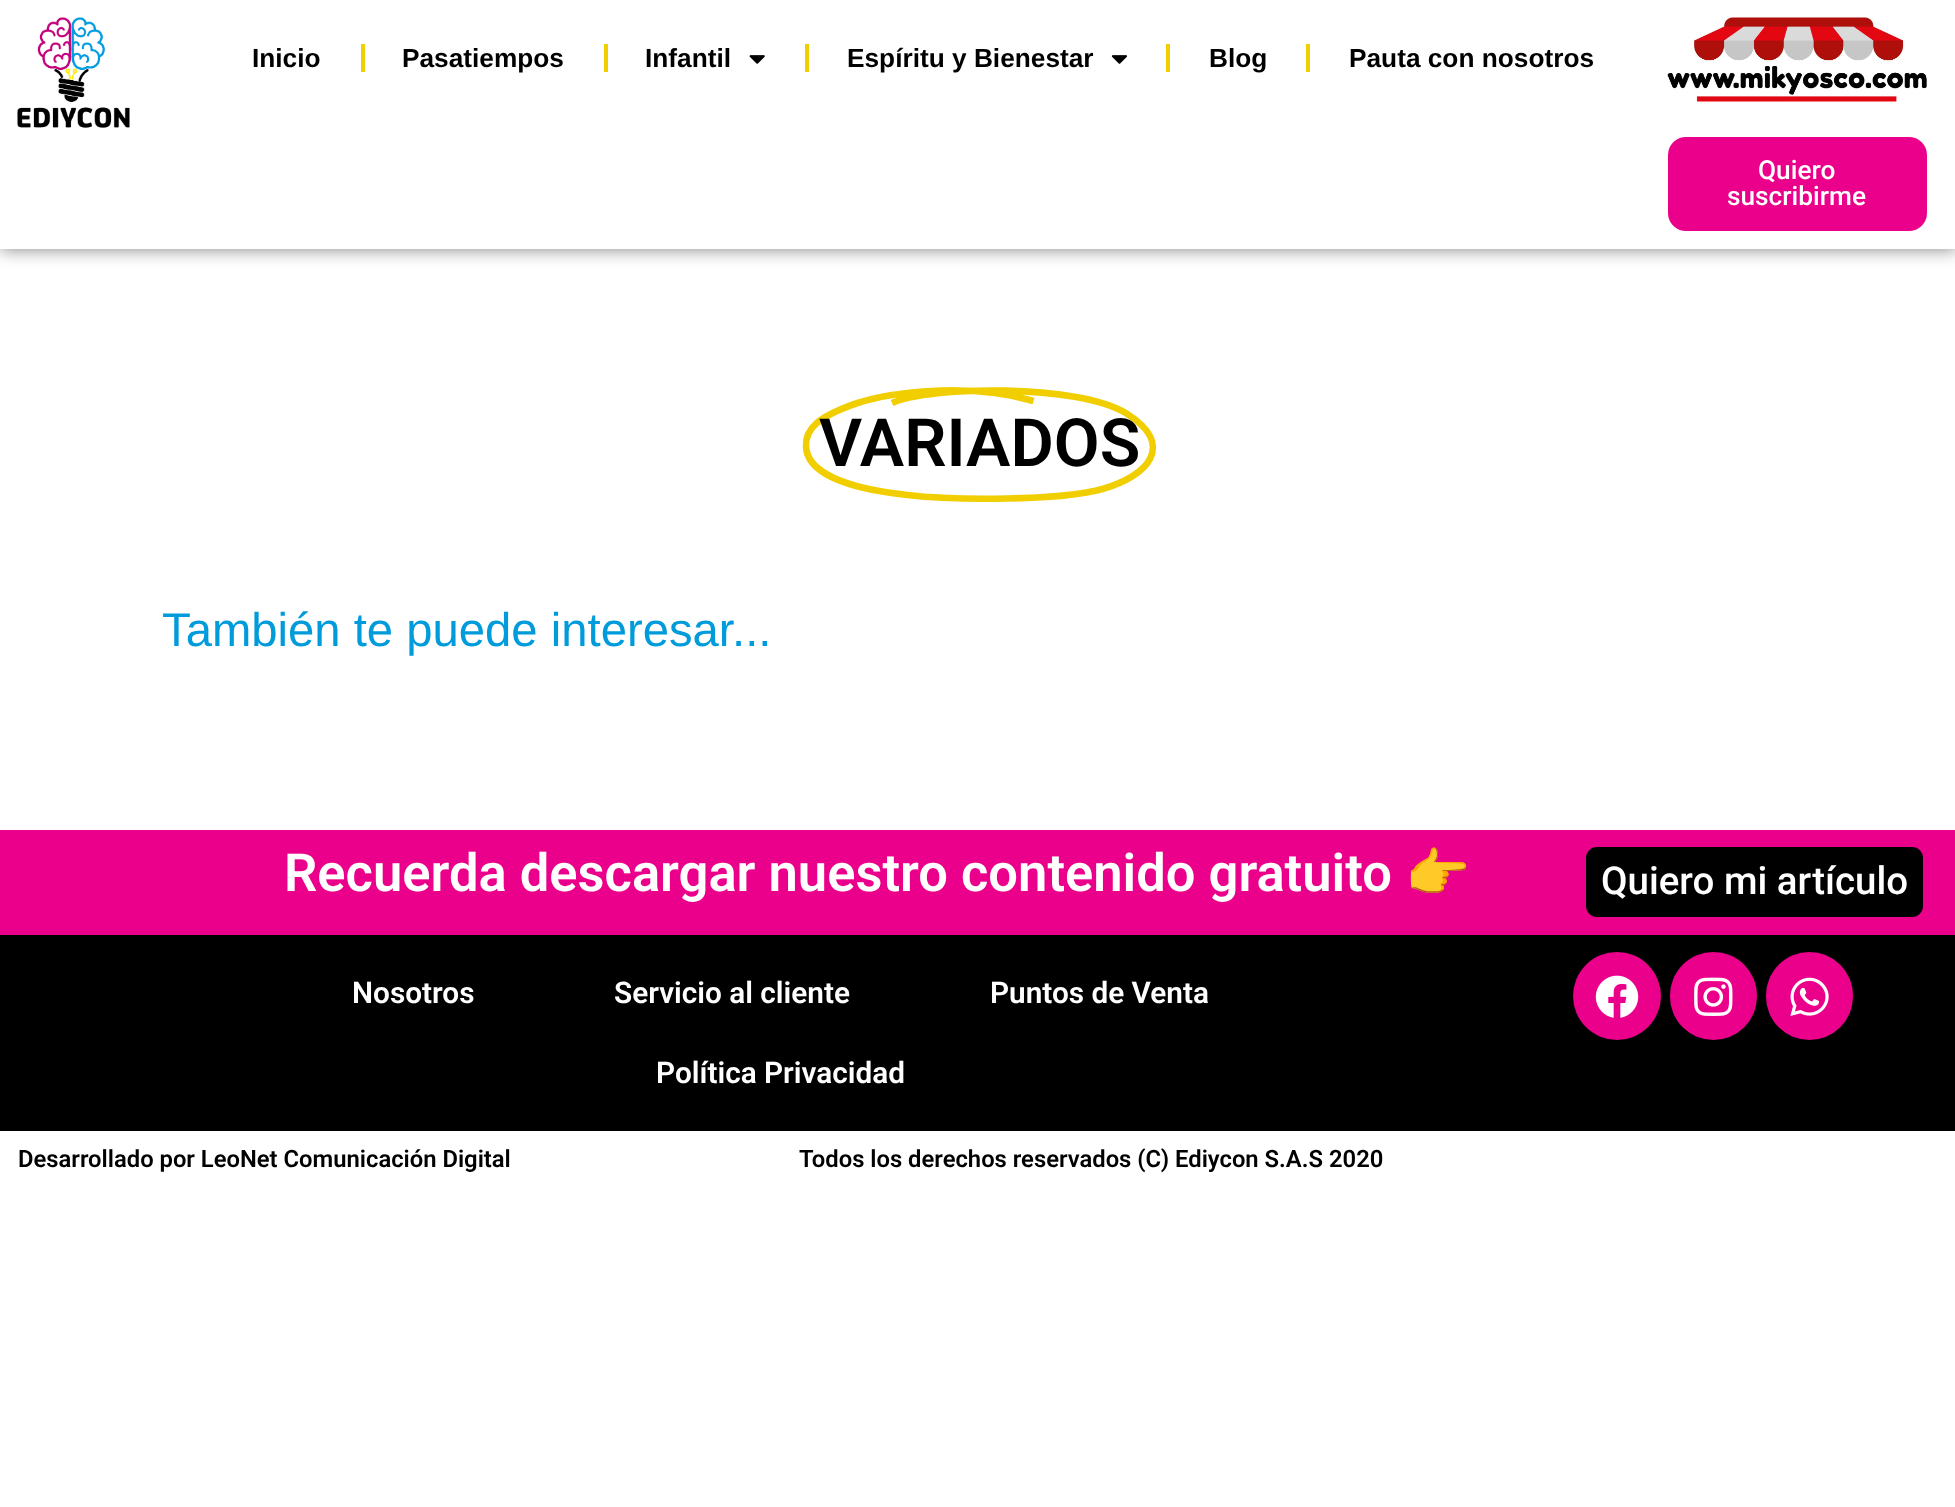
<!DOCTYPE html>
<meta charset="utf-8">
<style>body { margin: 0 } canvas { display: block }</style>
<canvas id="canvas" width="1955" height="1507"></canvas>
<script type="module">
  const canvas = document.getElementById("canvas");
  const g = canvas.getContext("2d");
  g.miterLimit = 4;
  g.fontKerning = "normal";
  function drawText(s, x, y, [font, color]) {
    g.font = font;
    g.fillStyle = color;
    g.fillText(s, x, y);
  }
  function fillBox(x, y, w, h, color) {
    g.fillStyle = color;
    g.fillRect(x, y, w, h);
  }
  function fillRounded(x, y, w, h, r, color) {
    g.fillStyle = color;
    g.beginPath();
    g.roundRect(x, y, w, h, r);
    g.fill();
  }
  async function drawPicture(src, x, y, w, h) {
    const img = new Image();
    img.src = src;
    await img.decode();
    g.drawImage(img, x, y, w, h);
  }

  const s1 = ["bold 26.25px Liberation Sans", "#000000"];
  const s2 = ["500 26.25px Roboto", "#FFFFFF"];
  const s3 = ["600 66.5px Roboto", "#000000"];
  const s4 = ["47.25px Liberation Sans", "#009BDB"];
  const s5 = ["600 52.5px Roboto", "#FFFFFF"];
  const s6 = ["bold 52.5px Noto Color Emoji", "#FFFFFF"];
  const s7 = ["500 38.5px Roboto", "#FFFFFF"];
  const s8 = ["600 29.75px Roboto", "#FFFFFF"];
  const s9 = ["600 23.8px Roboto", "#000000"];

  fillBox(0, 0, 1955, 1507, "#FFFFFF");
  g.fillStyle = "rgba(0, 0, 0, 0.5)";
  g.filter = "blur(9px)";
  g.beginPath();
  g.rect(0, 0, 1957, 249);
  g.fill();
  g.filter = "none";
  fillBox(0, 0, 1955, 249, "#FFFFFF");
  await drawPicture("pic1.png", 17, 17, 113, 111);
  drawText("Inicio", 252, 67, s1);
  fillBox(361, 44, 4, 28, "#F1CE00");
  drawText("Pasatiempos", 402, 67, s1);
  fillBox(604, 44, 4, 28, "#F1CE00");
  drawText("Infantil", 645, 67, s1);
  await drawPicture("pic2.png", 749, 55, 16, 9);
  fillBox(805, 44, 4, 28, "#F1CE00");
  drawText("Espíritu y Bienestar", 847, 67, s1);
  await drawPicture("pic3.png", 1111, 55, 16, 9);
  fillBox(1166, 44, 4, 28, "#F1CE00");
  drawText("Blog", 1209, 67, s1);
  fillBox(1306, 44, 4, 28, "#F1CE00");
  drawText("Pauta con nosotros", 1349, 67, s1);
  await drawPicture("pic4.png", 1667, 17, 260, 85);
  fillRounded(1668, 137, 259, 94, 18, "#EA008A");
  drawText("Quiero", 1758, 179, s2);
  drawText("suscribirme", 1727, 205, s2);
  g.beginPath();
  g.moveTo(1033.5, 401);
  g.bezierCurveTo(965, 381, 886.5, 393.5, 857.5, 403);
  g.bezierCurveTo(818, 416.5, 805, 429, 806, 446.5);
  g.bezierCurveTo(807, 471.5, 843, 488, 907.5, 495);
  g.bezierCurveTo(954.5, 500.5, 1058.5, 501, 1102.5, 489);
  g.bezierCurveTo(1148, 476, 1176.5, 445, 1126.5, 413.5);
  g.bezierCurveTo(1077.5, 383.5, 929.5, 386, 892, 403);
  g.strokeStyle = "#F1CE00";
  g.lineWidth = 6.6;
  g.stroke();
  drawText("VARIADOS", 819, 466, s3);
  drawText("También te puede interesar...", 162, 646, s4);
  fillBox(0, 830, 1955, 105, "#EA008A");
  drawText("Recuerda descargar nuestro contenido gratuito", 284, 891, s5);
  drawText("👉", 1405, 891, s6);
  fillRounded(1586, 847, 337, 70, 11, "#000000");
  drawText("Quiero mi artículo", 1601, 894, s7);
  fillBox(0, 935, 1955, 196, "#000000");
  drawText("Nosotros", 352, 1003, s8);
  drawText("Servicio al cliente", 614, 1003, s8);
  drawText("Puntos de Venta", 990, 1003, s8);
  drawText("Política Privacidad", 656, 1083, s8);
  g.fillStyle = "#EA008A";
  g.beginPath();
  g.arc(1617, 996, 44, 0, Math.PI * 2);
  g.fill();
  await drawPicture("pic5.png", 1595, 975, 44, 43);
  fillRounded(1670, 952, 87, 88, 43.5, "#EA008A");
  await drawPicture("pic6.png", 1694, 977, 39, 39);
  fillRounded(1766, 952, 87, 88, 43.5, "#EA008A");
  await drawPicture("pic7.png", 1790, 977, 39, 39);
  drawText("Desarrollado por LeoNet Comunicación Digital", 18, 1167, s9);
  drawText("Todos los derechos reservados (C) Ediycon S.A.S 2020", 799, 1167, s9);
</script>
